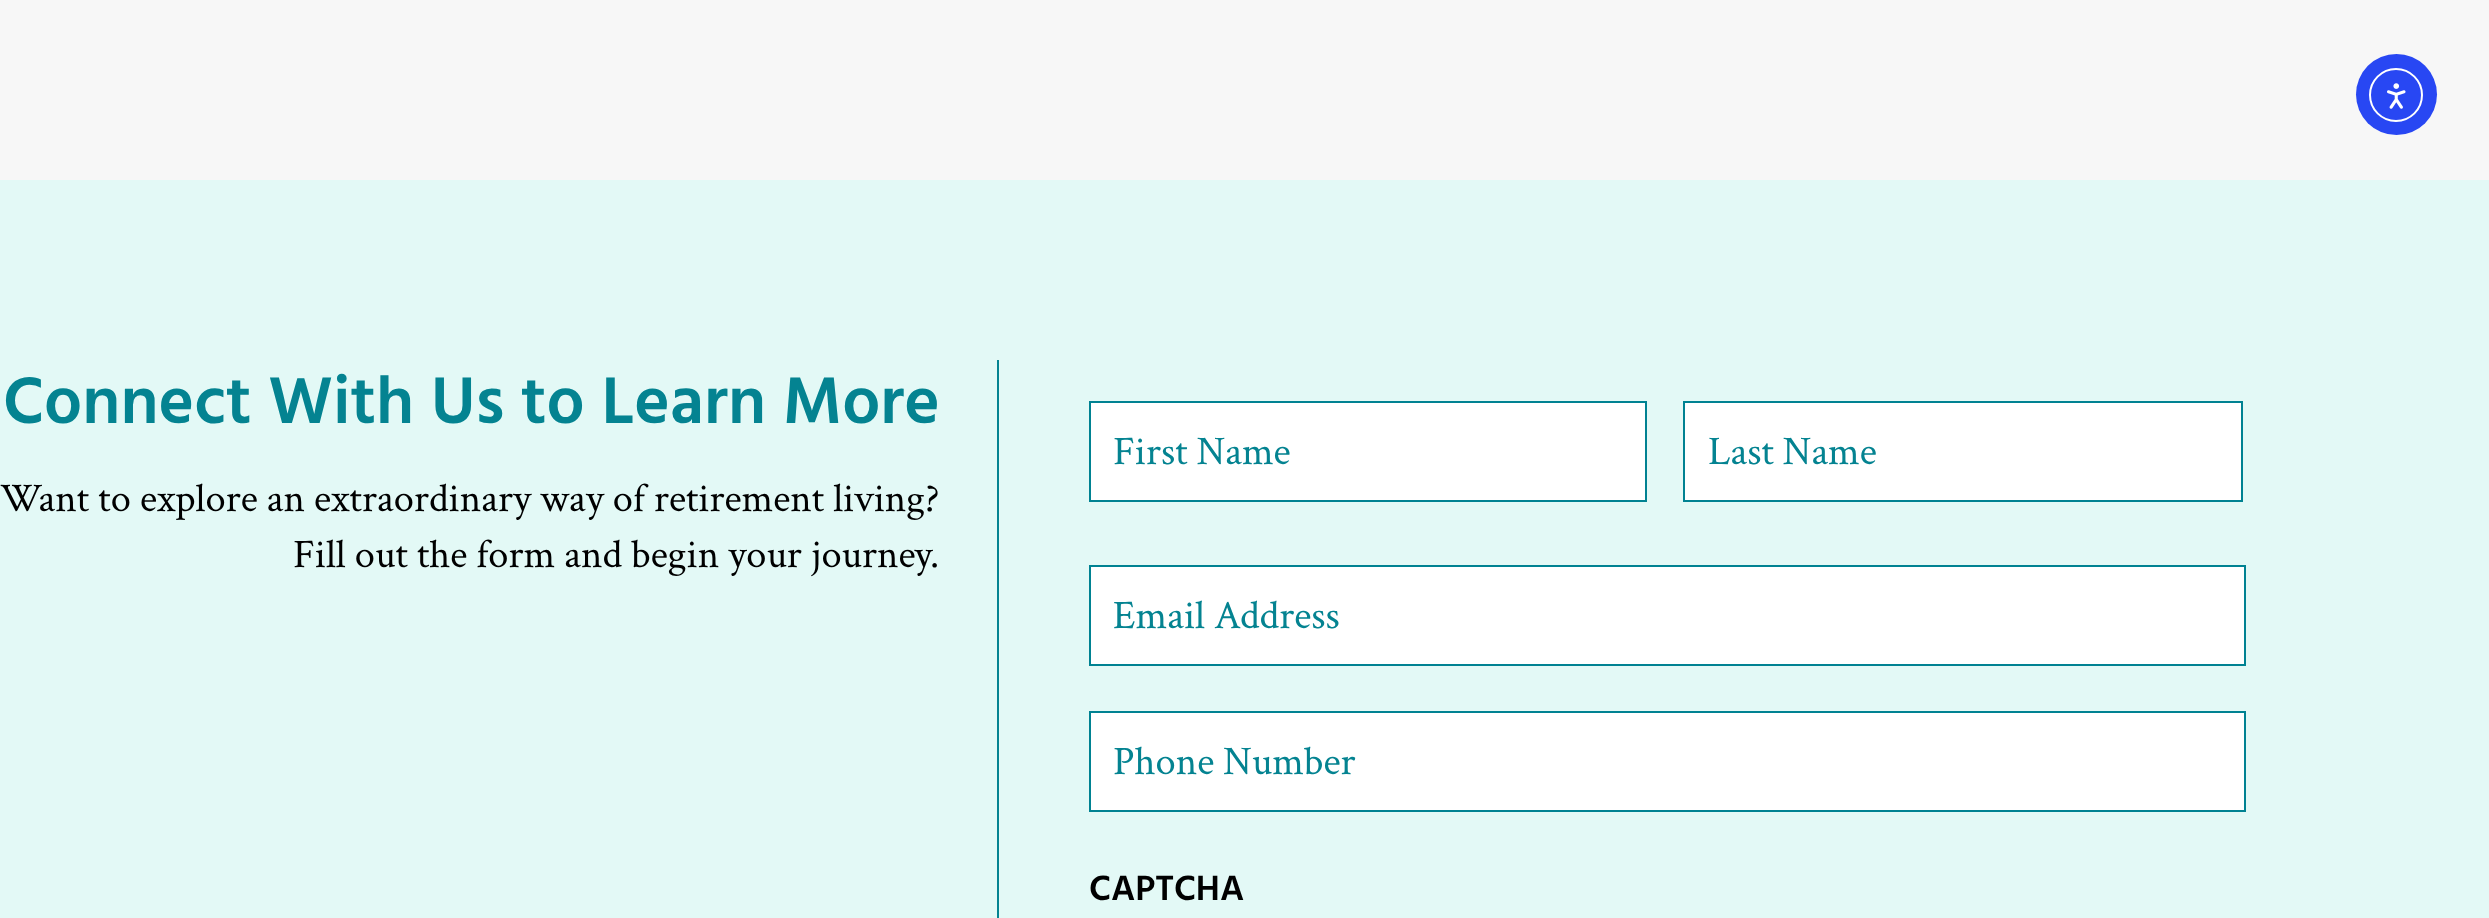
<!DOCTYPE html>
<meta charset="utf-8">
<style>body { margin: 0 } canvas { display: block }</style>
<canvas id="canvas" width="2489" height="918"></canvas>
<script type="module">
  const canvas = document.getElementById("canvas");
  const g = canvas.getContext("2d");
  g.miterLimit = 4;
  g.fontKerning = "normal";
  function drawText(s, x, y, [font, color]) {
    g.font = font;
    g.fillStyle = color;
    g.fillText(s, x, y);
  }
  function fillBox(x, y, w, h, color) {
    g.fillStyle = color;
    g.fillRect(x, y, w, h);
  }
  async function drawPicture(src, x, y, w, h) {
    const img = new Image();
    img.src = src;
    await img.decode();
    g.drawImage(img, x, y, w, h);
  }

  const s1 = ["600 67.5px Hind Vadodara", "#048391"];
  const s2 = ["40.5px Crimson Text", "#000000"];
  const s3 = ["40.5px Crimson Text", "#048391"];
  const s4 = ["600 36px Hind Vadodara", "#000000"];

  fillBox(0, 0, 2489, 918, "#F7F7F7");
  g.fillStyle = "#2847F3";
  g.beginPath();
  g.arc(2396.5, 94.5, 40.5, 0, Math.PI * 2);
  g.fill();
  g.beginPath();
  g.arc(2396, 95, 26, 0, Math.PI * 2);
  g.strokeStyle = "#FFFFFF";
  g.lineWidth = 2;
  g.stroke();
  await drawPicture("pic1.png", 2387, 83, 19, 26);
  fillBox(0, 180, 2489, 738, "#E3F9F6");
  drawText("Connect With Us to Learn More", 3, 423, s1);
  drawText("Want to explore an extraordinary way of retirement living?", 0, 511, s2);
  drawText("Fill out the form and begin your journey.", 293, 567, s2);
  fillBox(997, 360, 2, 558, "#048391");
  g.fillStyle = "#FFFFFF";
  g.beginPath();
  g.rect(1090, 402, 556, 99);
  g.fill();
  g.strokeStyle = "#008292";
  g.stroke();
  drawText("First Name", 1113, 464, s3);
  g.fillStyle = "#FFFFFF";
  g.beginPath();
  g.rect(1684, 402, 558, 99);
  g.fill();
  g.stroke();
  drawText("Last Name", 1708, 464, s3);
  g.fillStyle = "#FFFFFF";
  g.beginPath();
  g.rect(1090, 566, 1155, 99);
  g.fill();
  g.stroke();
  drawText("Email Address", 1113, 628, s3);
  g.fillStyle = "#FFFFFF";
  g.beginPath();
  g.rect(1090, 712, 1155, 99);
  g.fill();
  g.stroke();
  drawText("Phone Number", 1113, 774, s3);
  drawText("CAPTCHA", 1089, 900, s4);
</script>
